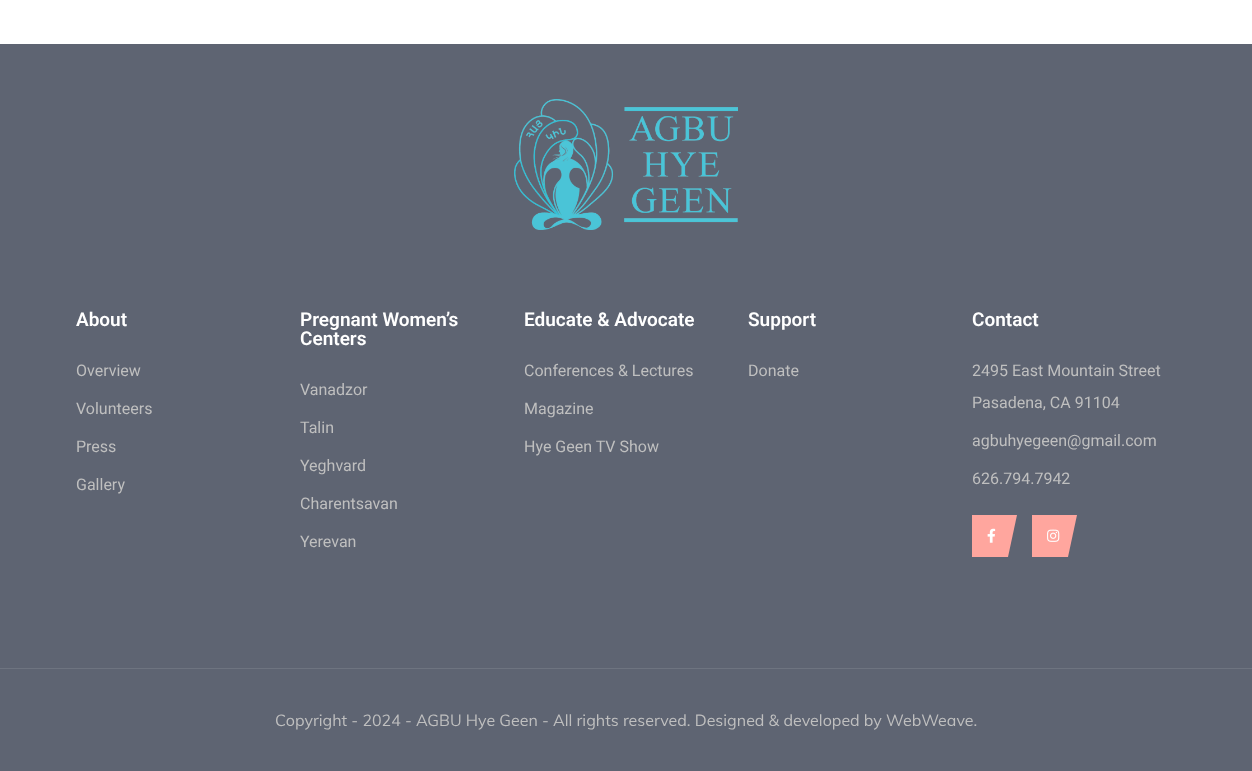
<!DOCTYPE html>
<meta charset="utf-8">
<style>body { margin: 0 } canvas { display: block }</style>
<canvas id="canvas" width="1252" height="771"></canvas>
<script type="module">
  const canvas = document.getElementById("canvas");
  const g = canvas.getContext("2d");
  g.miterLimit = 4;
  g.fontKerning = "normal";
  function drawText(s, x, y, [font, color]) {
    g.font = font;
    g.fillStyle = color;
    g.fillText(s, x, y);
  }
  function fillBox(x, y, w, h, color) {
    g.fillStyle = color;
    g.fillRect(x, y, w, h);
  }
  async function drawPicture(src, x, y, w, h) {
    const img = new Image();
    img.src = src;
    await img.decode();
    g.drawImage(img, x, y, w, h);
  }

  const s1 = ["600 19px Roboto", "#FFFFFF"];
  const s2 = ["16px Roboto", "#BFBFBF"];
  const s3 = ["16px Muli", "#BFBFBF"];

  fillBox(0, 0, 1252, 771, "#FFFFFF");
  fillBox(0, 44, 1252, 727, "#5E6472");
  await drawPicture("pic1.png", 514, 99, 224, 131);
  drawText("About", 76, 326, s1);
  drawText("Overview", 76, 376, s2);
  drawText("Volunteers", 76, 414, s2);
  drawText("Press", 76, 452, s2);
  drawText("Gallery", 76, 490, s2);
  drawText("Pregnant Women’s", 300, 326, s1);
  drawText("Centers", 300, 345, s1);
  drawText("Vanadzor", 300, 395, s2);
  drawText("Talin", 300, 433, s2);
  drawText("Yeghvard", 300, 471, s2);
  drawText("Charentsavan", 300, 509, s2);
  drawText("Yerevan", 300, 547, s2);
  drawText("Educate & Advocate", 524, 326, s1);
  drawText("Conferences & Lectures", 524, 376, s2);
  drawText("Magazine", 524, 414, s2);
  drawText("Hye Geen TV Show", 524, 452, s2);
  drawText("Support", 748, 326, s1);
  drawText("Donate", 748, 376, s2);
  drawText("Contact", 972, 326, s1);
  drawText("2495 East Mountain Street", 972, 376, s2);
  drawText("Pasadena, CA 91104", 972, 408, s2);
  drawText("agbuhyegeen@gmail.com", 972, 446, s2);
  drawText("626.794.7942", 972, 484, s2);
  fillBox(972, 515, 10, 42, "#FFA69E");
  g.beginPath();
  g.moveTo(982, 515);
  g.lineTo(1017, 515);
  g.lineTo(1008, 557);
  g.lineTo(973, 557);
  g.closePath();
  g.fill();
  await drawPicture("pic2.png", 987, 528, 9, 15);
  fillBox(1032, 515, 10, 42, "#FFA69E");
  g.beginPath();
  g.moveTo(1042, 515);
  g.lineTo(1077, 515);
  g.lineTo(1068, 557);
  g.lineTo(1033, 557);
  g.closePath();
  g.fill();
  await drawPicture("pic3.png", 1047, 529, 13, 13);
  fillBox(0, 668, 1252, 1, "#6E7480");
  drawText("Copyright - 2024 - AGBU Hye Geen - All rights reserved. Designed & developed by WebWeave.", 275, 726, s3);
</script>
